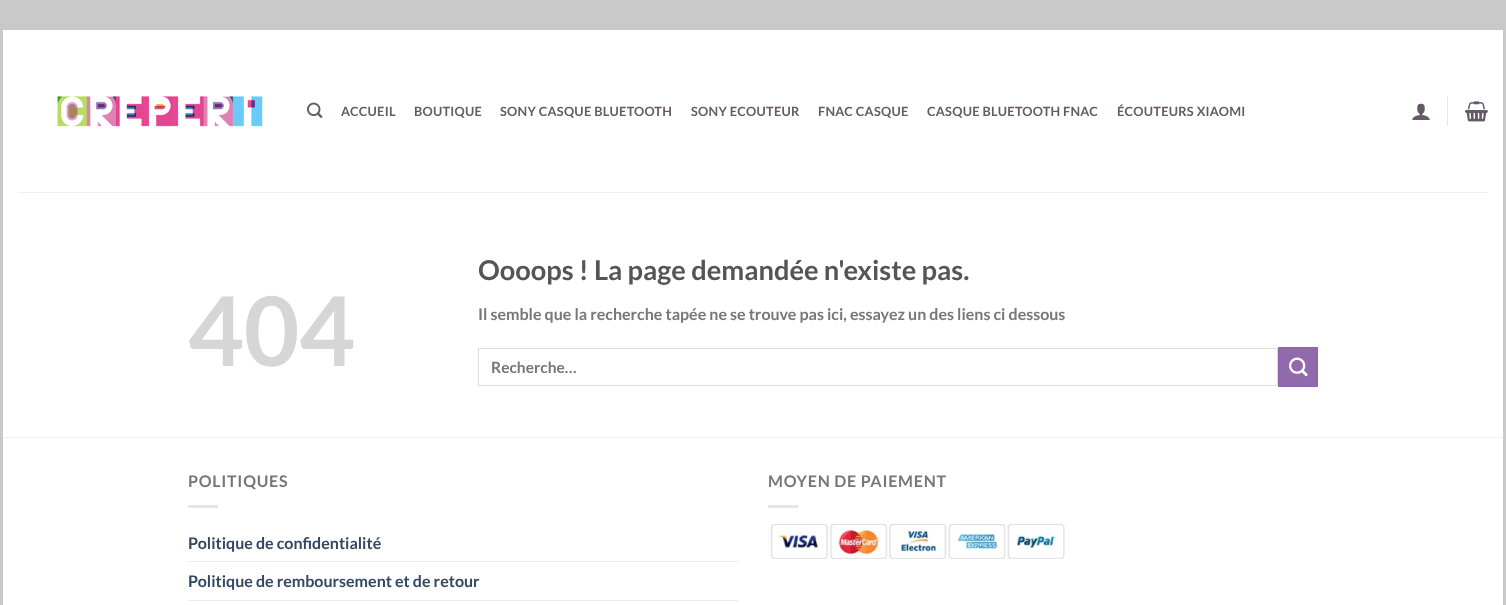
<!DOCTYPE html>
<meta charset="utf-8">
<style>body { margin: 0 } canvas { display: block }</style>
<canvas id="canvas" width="1506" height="605"></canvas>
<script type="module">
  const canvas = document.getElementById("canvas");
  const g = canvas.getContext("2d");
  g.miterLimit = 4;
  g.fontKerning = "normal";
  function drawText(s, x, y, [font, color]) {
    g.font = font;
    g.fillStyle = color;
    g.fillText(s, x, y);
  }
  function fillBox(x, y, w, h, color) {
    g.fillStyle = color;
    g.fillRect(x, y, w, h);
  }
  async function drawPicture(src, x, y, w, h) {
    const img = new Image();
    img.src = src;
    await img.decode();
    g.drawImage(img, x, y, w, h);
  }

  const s1 = ["bold 12.75px Lato", "#665968"];
  const s2 = ["bold 96px Lato", "#D6D6D6"];
  const s3 = ["bold 27.25px Lato", "#555555"];
  const s4 = ["bold 16px Lato", "#777777"];
  const s5 = ["bold 15.5px Lato", "#777777"];
  const s6 = ["bold 16px Lato", "#334862"];

  fillBox(0, 0, 1506, 605, "#C9C9C9");
  fillBox(3, 30, 1500, 575, "#FFFFFF");
  await drawPicture("pic1.png", 57, 96, 206, 31);
  await drawPicture("pic2.png", 307, 102, 16, 16);
  g.letterSpacing = "0.25px";
  drawText("ACCUEIL", 341, 116, s1);
  drawText("BOUTIQUE", 414, 116, s1);
  drawText("SONY CASQUE BLUETOOTH", 500, 116, s1);
  drawText("SONY ECOUTEUR", 691, 116, s1);
  drawText("FNAC CASQUE", 818, 116, s1);
  drawText("CASQUE BLUETOOTH FNAC", 927, 116, s1);
  drawText("ÉCOUTEURS XIAOMI", 1117, 116, s1);
  await drawPicture("pic3.png", 1412, 103, 18, 17);
  fillBox(1447, 96, 1, 30, "#E6E6E6");
  await drawPicture("pic4.png", 1465, 101, 23, 21);
  fillBox(18, 192, 1470, 1, "#F1F1F1");
  g.letterSpacing = "0px";
  drawText("404", 188, 366, s2);
  drawText("Oooops ! La page demandée n'existe pas.", 478, 280, s3);
  drawText("Il semble que la recherche tapée ne se trouve pas ici, essayez un des liens ci dessous", 478, 320, s4);
  g.strokeStyle = "#DDDDDD";
  g.strokeRect(478.5, 348.5, 799, 37);
  drawText("Recherche…", 491, 373, s5);
  g.fillStyle = "#906AAD";
  g.beginPath();
  g.rect(1278.5, 347.5, 39, 39);
  g.fill();
  g.strokeStyle = "#8965A4";
  g.stroke();
  await drawPicture("pic5.png", 1289, 357, 19, 20);
  fillBox(3, 437, 1500, 1, "#F2F2F2");
  g.letterSpacing = "0.75px";
  drawText("POLITIQUES", 188, 487, s4);
  fillBox(188, 505, 30, 3, "#E6E6E6");
  g.letterSpacing = "0px";
  drawText("Politique de confidentialité", 188, 549, s6);
  fillBox(188, 561, 550, 1, "#ECECEC");
  drawText("Politique de remboursement et de retour", 188, 587, s6);
  fillBox(188, 600, 550, 1, "#ECECEC");
  g.letterSpacing = "0.75px";
  drawText("MOYEN DE PAIEMENT", 768, 487, s4);
  fillBox(768, 505, 30, 3, "#E6E6E6");
  await drawPicture("pic6.png", 770, 524, 295, 35);
</script>
